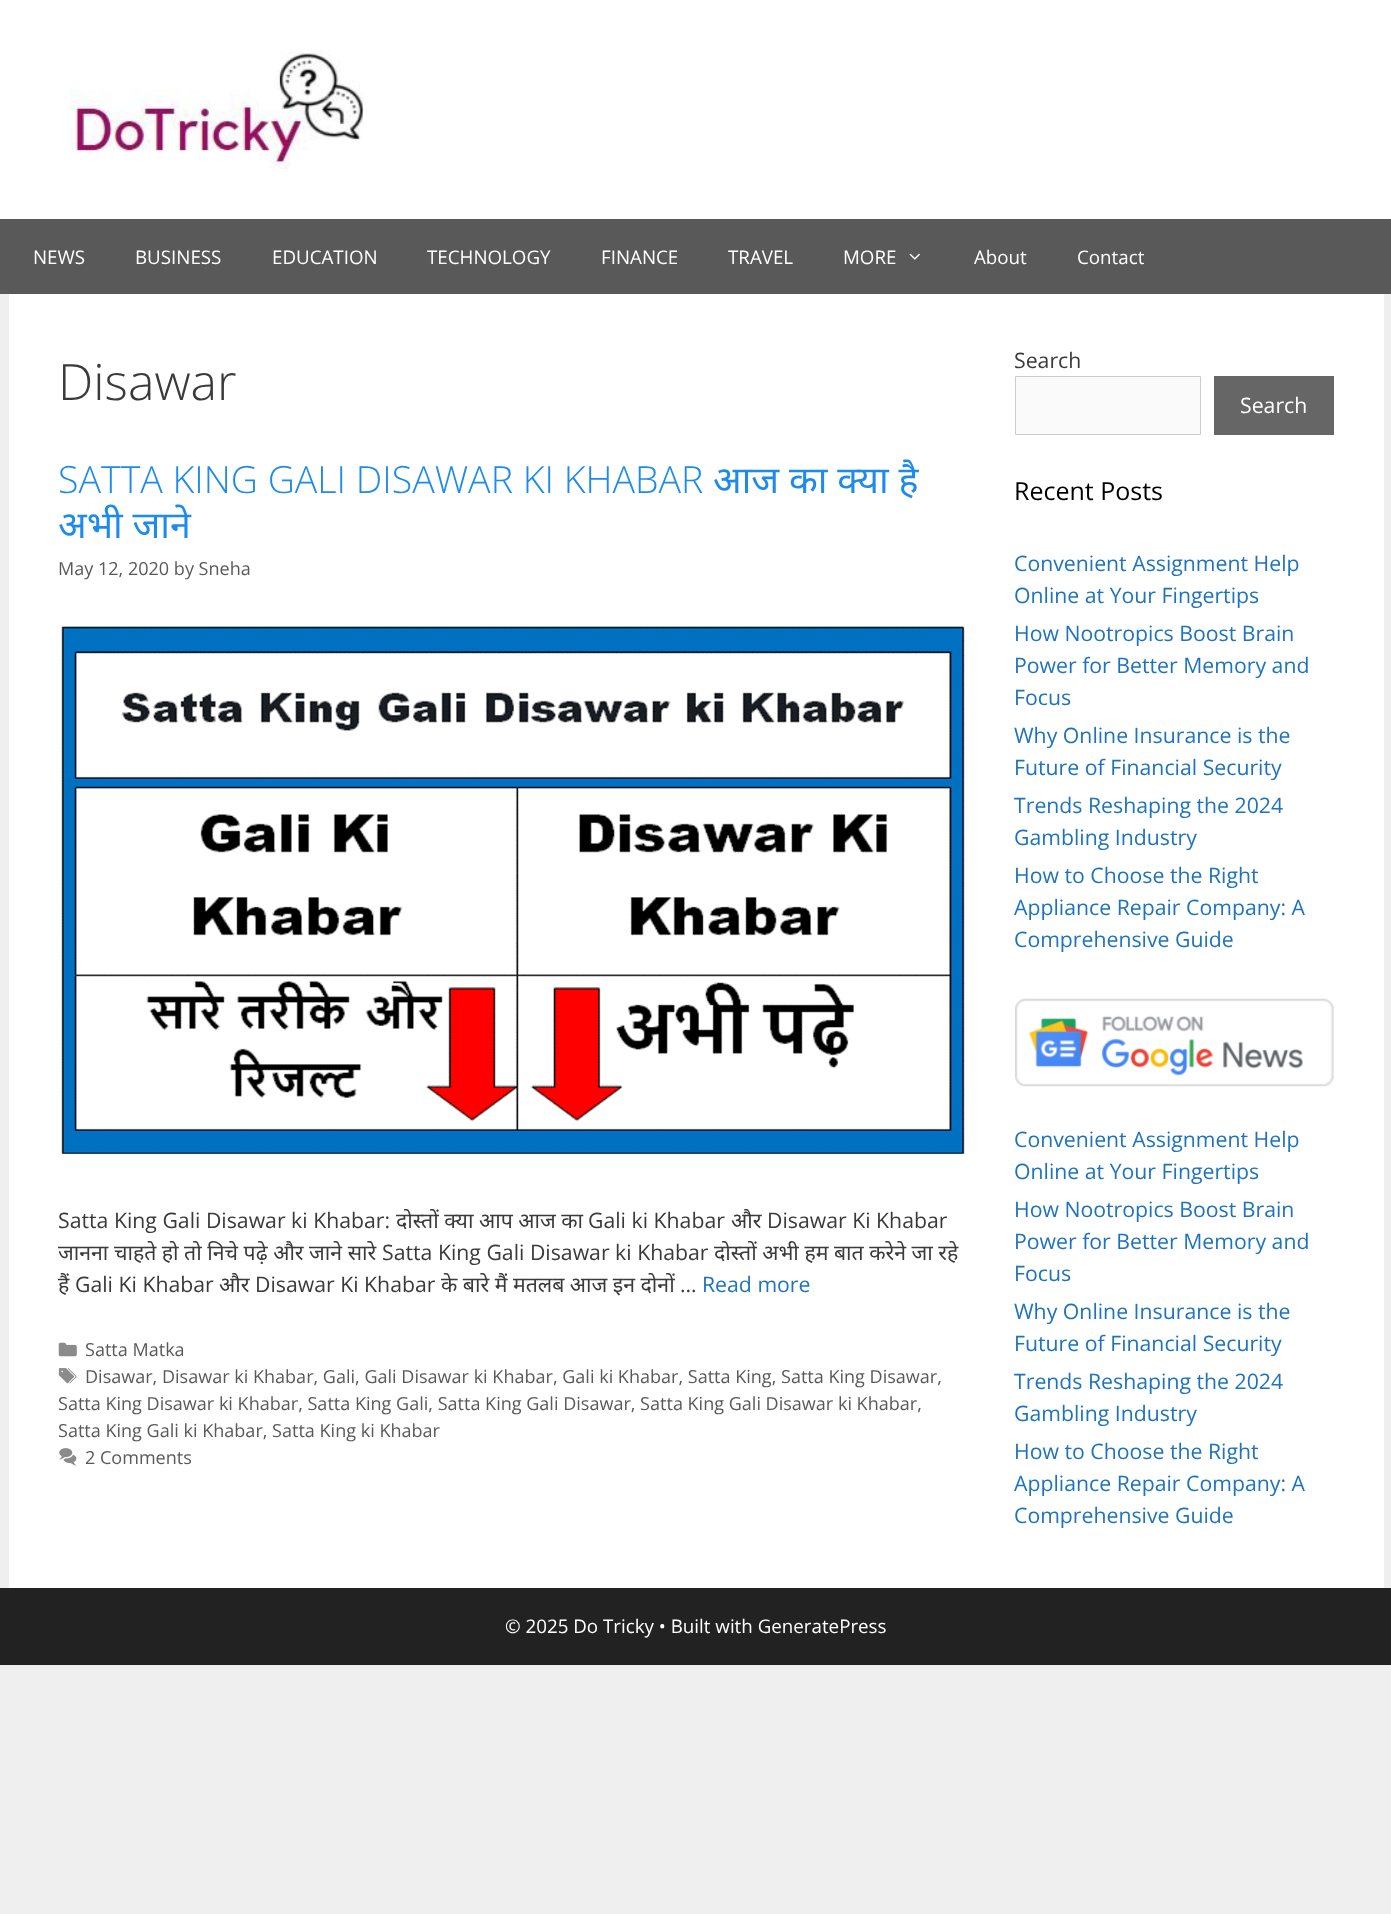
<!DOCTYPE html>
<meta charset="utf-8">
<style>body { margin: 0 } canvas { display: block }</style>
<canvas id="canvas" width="1391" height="1914"></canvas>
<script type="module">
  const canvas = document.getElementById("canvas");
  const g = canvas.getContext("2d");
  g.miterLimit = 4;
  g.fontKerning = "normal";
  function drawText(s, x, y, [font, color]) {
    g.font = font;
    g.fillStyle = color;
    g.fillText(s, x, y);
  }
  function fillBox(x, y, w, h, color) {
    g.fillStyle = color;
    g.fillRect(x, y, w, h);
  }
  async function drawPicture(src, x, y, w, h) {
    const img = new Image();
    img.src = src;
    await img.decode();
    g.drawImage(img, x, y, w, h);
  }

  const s1 = ["18.75px Open Sans", "#FFFFFF"];
  const s2 = ["300 50px Open Sans", "#3A3A3A"];
  const s3 = ["300 37.5px Open Sans", "#1E8BEA"];
  const s4 = ["37.5px Noto Sans", "#1E8BEA"];
  const s5 = ["18.05px Open Sans", "#595959"];
  const s6 = ["21.25px Open Sans", "#3A3A3A"];
  const s7 = ["21.25px Noto Sans", "#3A3A3A"];
  const s8 = ["21.25px Open Sans", "#1E73BE"];
  const s9 = ["21.25px Open Sans", "#FFFFFF"];
  const s10 = ["25px Open Sans", "#000000"];

  fillBox(0, 0, 1391, 1914, "#EFEFEF");
  fillBox(0, 0, 1391, 219, "#FFFFFF");
  await drawPicture("pic1.png", 70, 50, 294, 119);
  fillBox(0, 219, 1391, 75, "#595959");
  drawText("NEWS", 33, 264, s1);
  drawText("BUSINESS", 135, 264, s1);
  drawText("EDUCATION", 272, 264, s1);
  drawText("TECHNOLOGY", 427, 264, s1);
  drawText("FINANCE", 601, 264, s1);
  drawText("TRAVEL", 728, 264, s1);
  drawText("MORE", 843, 264, s1);
  await drawPicture("pic2.png", 909, 253, 11, 7);
  drawText("About", 974, 264, s1);
  drawText("Contact", 1077, 264, s1);
  fillBox(9, 294, 1375, 1294, "#FFFFFF");
  drawText("Disawar", 58, 400, s2);
  drawText("SATTA KING GALI DISAWAR KI KHABAR", 58, 493, s3);
  drawText("आज का क्या है", 713, 493, s4);
  drawText("अभी जाने", 58, 538, s4);
  drawText("May 12, 2020 by Sneha", 58, 575, s5);
  await drawPicture("pic3.png", 61, 626, 904, 528);
  drawText("Satta King Gali Disawar ki Khabar:", 58, 1228, s6);
  drawText("दोस्तों क्या आप आज का", 396, 1228, s7);
  drawText("Gali ki Khabar", 588, 1228, s6);
  drawText("और", 731, 1228, s7);
  drawText("Disawar Ki Khabar", 767, 1228, s6);
  drawText("जानना चाहते हो तो निचे पढ़े और जाने सारे", 58, 1260, s7);
  drawText("Satta King Gali Disawar ki Khabar", 382, 1260, s6);
  drawText("दोस्तों अभी हम बात करेने जा रहे", 714, 1260, s7);
  drawText("हैं", 58, 1292, s7);
  drawText("Gali Ki Khabar", 75, 1292, s6);
  drawText("और", 219, 1292, s7);
  drawText("Disawar Ki Khabar", 255, 1292, s6);
  drawText("के बारे मैं मतलब आज इन दोनों", 441, 1292, s7);
  drawText("…", 680, 1292, s6);
  drawText("Read more", 702, 1292, s8);
  await drawPicture("pic4.png", 58, 1342, 19, 15);
  drawText("Satta Matka", 85, 1356, s5);
  await drawPicture("pic5.png", 58, 1368, 19, 16);
  drawText("Disawar, Disawar ki Khabar, Gali, Gali Disawar ki Khabar, Gali ki Khabar, Satta King, Satta King Disawar,", 85, 1383, s5);
  drawText("Satta King Disawar ki Khabar, Satta King Gali, Satta King Gali Disawar, Satta King Gali Disawar ki Khabar,", 58, 1410, s5);
  drawText("Satta King Gali ki Khabar, Satta King ki Khabar", 58, 1437, s5);
  await drawPicture("pic6.png", 59, 1448, 18, 18);
  drawText("2 Comments", 85, 1464, s5);
  drawText("Search", 1014, 368, s6);
  g.fillStyle = "#FAFAFA";
  g.beginPath();
  g.rect(1015.5, 376.5, 185, 58);
  g.fill();
  g.strokeStyle = "#CCCCCC";
  g.stroke();
  fillBox(1214, 376, 120, 59, "#666666");
  drawText("Search", 1240, 413, s9);
  drawText("Recent Posts", 1014, 500, s10);
  drawText("Convenient Assignment Help", 1014, 571, s8);
  drawText("Online at Your Fingertips", 1014, 603, s8);
  drawText("How Nootropics Boost Brain", 1014, 641, s8);
  drawText("Power for Better Memory and", 1014, 673, s8);
  drawText("Focus", 1014, 705, s8);
  drawText("Why Online Insurance is the", 1014, 743, s8);
  drawText("Future of Financial Security", 1014, 775, s8);
  drawText("Trends Reshaping the 2024", 1014, 813, s8);
  drawText("Gambling Industry", 1014, 845, s8);
  drawText("How to Choose the Right", 1014, 883, s8);
  drawText("Appliance Repair Company: A", 1014, 915, s8);
  drawText("Comprehensive Guide", 1014, 947, s8);
  await drawPicture("pic7.png", 1015, 998, 319, 89);
  drawText("Convenient Assignment Help", 1014, 1147, s8);
  drawText("Online at Your Fingertips", 1014, 1179, s8);
  drawText("How Nootropics Boost Brain", 1014, 1217, s8);
  drawText("Power for Better Memory and", 1014, 1249, s8);
  drawText("Focus", 1014, 1281, s8);
  drawText("Why Online Insurance is the", 1014, 1319, s8);
  drawText("Future of Financial Security", 1014, 1351, s8);
  drawText("Trends Reshaping the 2024", 1014, 1389, s8);
  drawText("Gambling Industry", 1014, 1421, s8);
  drawText("How to Choose the Right", 1014, 1459, s8);
  drawText("Appliance Repair Company: A", 1014, 1491, s8);
  drawText("Comprehensive Guide", 1014, 1523, s8);
  fillBox(0, 1588, 1391, 77, "#222222");
  drawText("© 2025 Do Tricky • Built with GeneratePress", 505, 1633, s1);
</script>
